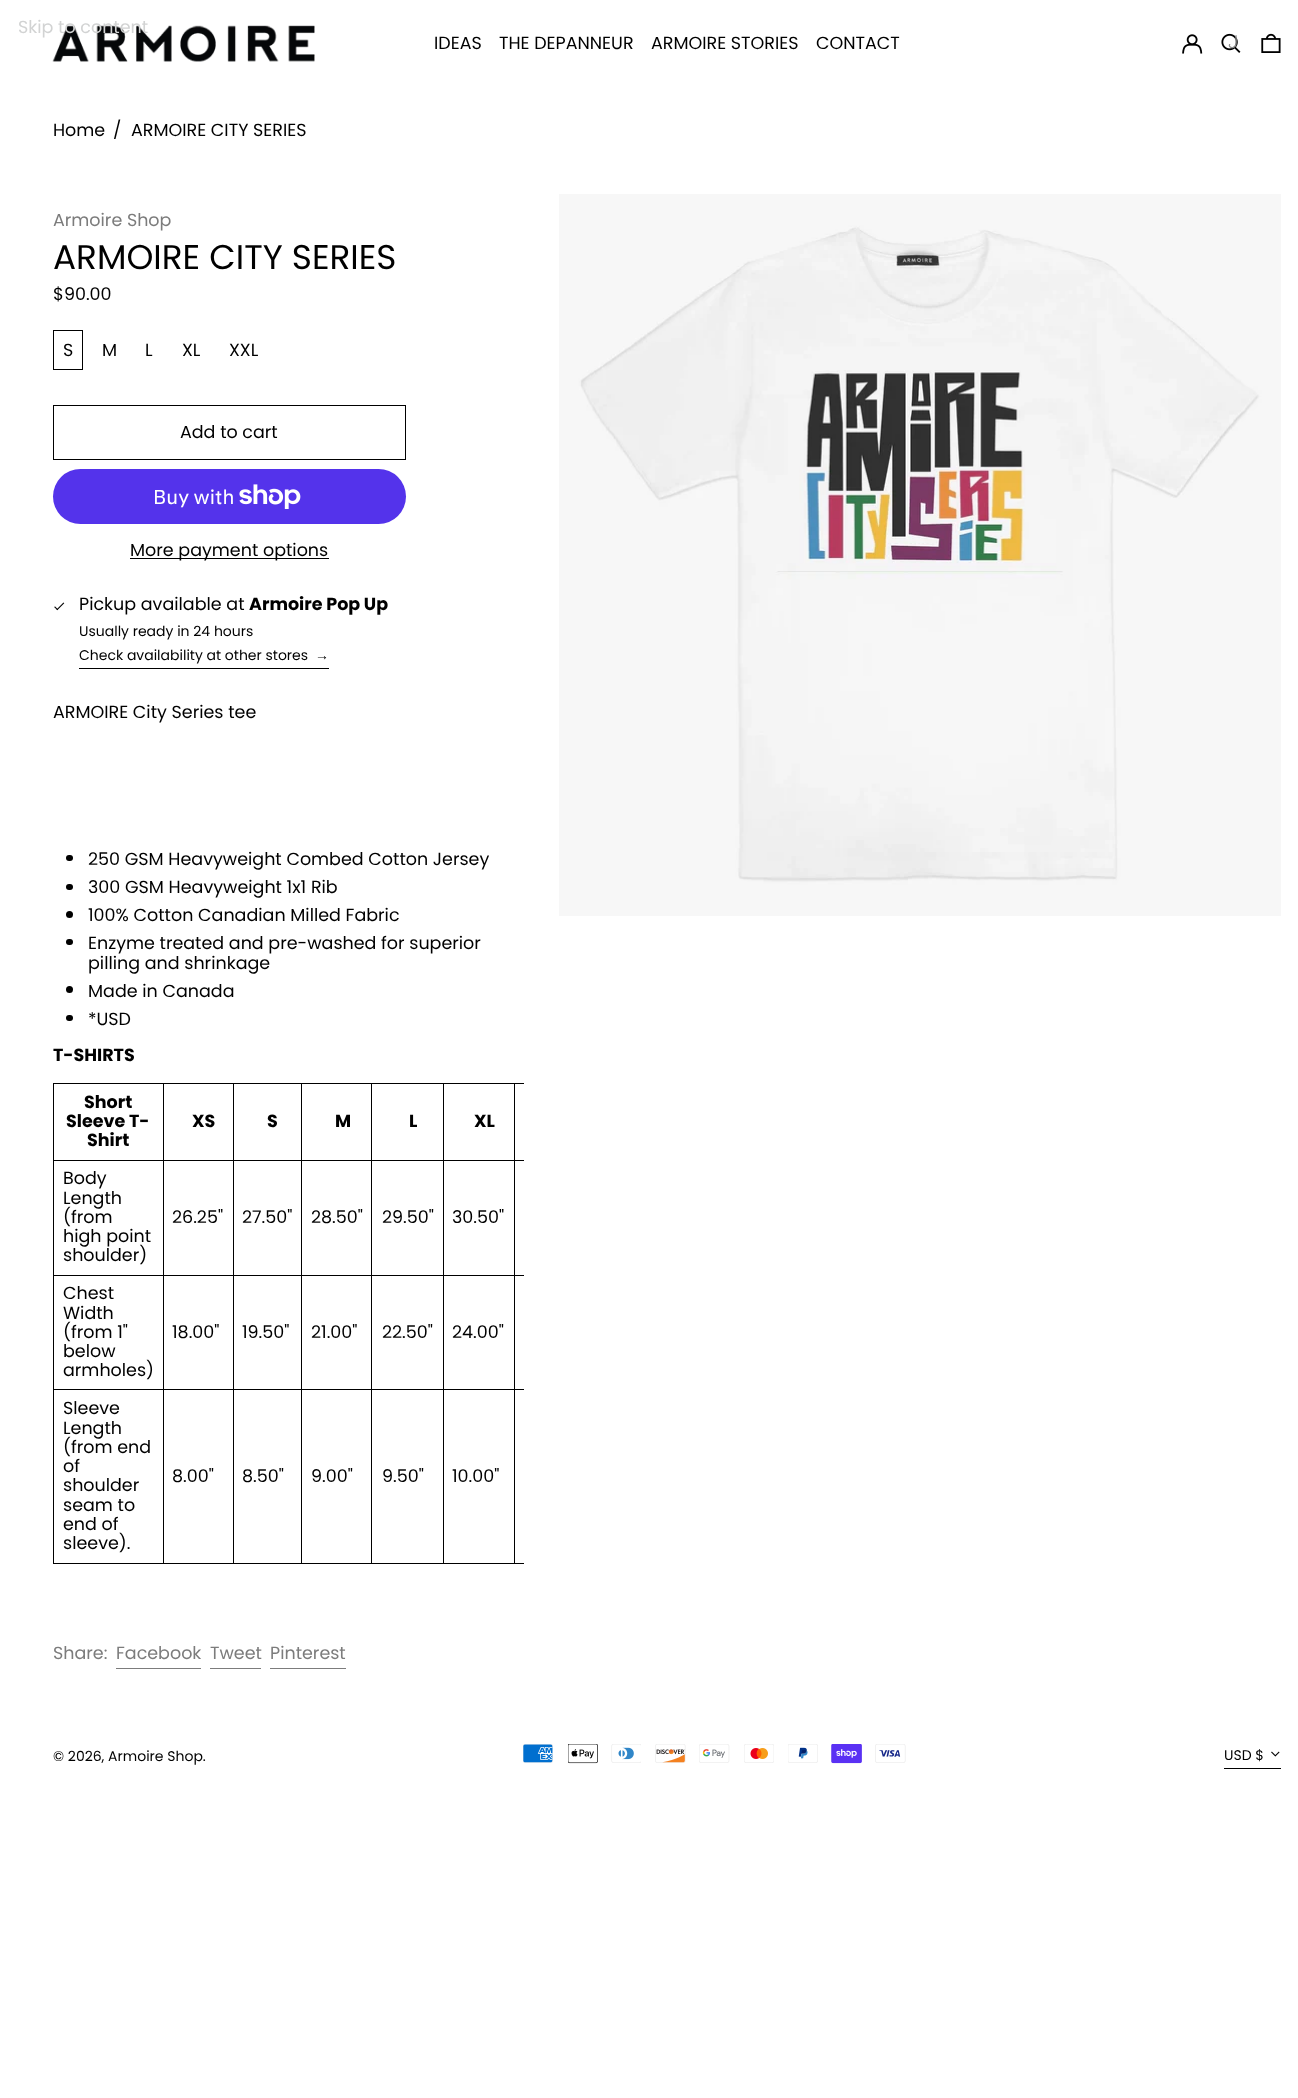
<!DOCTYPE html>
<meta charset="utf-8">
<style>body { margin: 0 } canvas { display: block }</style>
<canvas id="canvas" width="1298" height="2098"></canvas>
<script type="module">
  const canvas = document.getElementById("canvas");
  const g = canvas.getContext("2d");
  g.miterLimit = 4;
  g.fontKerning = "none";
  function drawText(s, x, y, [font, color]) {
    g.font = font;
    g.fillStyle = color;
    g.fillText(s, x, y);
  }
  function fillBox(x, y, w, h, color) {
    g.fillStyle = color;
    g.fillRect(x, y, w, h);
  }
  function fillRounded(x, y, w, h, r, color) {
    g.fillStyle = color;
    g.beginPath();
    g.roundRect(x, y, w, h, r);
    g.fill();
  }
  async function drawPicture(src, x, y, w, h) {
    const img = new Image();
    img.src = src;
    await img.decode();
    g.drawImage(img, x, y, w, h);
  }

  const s1 = ["17.5px Poppins", "#D2D3D3"];
  const s2 = ["14px Poppins", "#000000"];
  const s3 = ["14px DejaVu Sans", "#919191"];
  const s4 = ["17.5px Poppins", "#000000"];
  const s5 = ["17.5px Poppins", "#7C7C7C"];
  const s6 = ["34.25px Poppins", "#000000"];
  const s7 = ["20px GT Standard", "#FFFFFF"];
  const s8 = ["bold 17.5px Poppins", "#000000"];
  const s9 = ["14px Liberation Sans", "#000000"];

  fillBox(0, 0, 1298, 2098, "#FFFFFF");
  await drawPicture("pic11.png", 52, 25, 263, 37);
  drawText("Skip to content", 18, 33, s1);
  drawText("© 2026, Armoire Shop.", 53, 1761, s2);
  await drawPicture("pic1.png", 523, 1744, 30, 19);
  await drawPicture("pic2.png", 568, 1744, 30, 20);
  await drawPicture("pic3.png", 611, 1744, 30, 19);
  await drawPicture("pic4.png", 655, 1744, 31, 19);
  await drawPicture("pic5.png", 699, 1744, 31, 19);
  await drawPicture("pic6.png", 744, 1744, 30, 19);
  await drawPicture("pic7.png", 788, 1744, 30, 19);
  await drawPicture("pic8.png", 831, 1744, 31, 20);
  await drawPicture("pic9.png", 875, 1744, 31, 19);
  await drawPicture("pic13.png", 1221, 33, 20, 20);
  g.direction = "rtl";
  drawText("ل", 1238, 46, s3);
  fillBox(1224, 1768, 57, 1, "#000000");
  g.direction = "ltr";
  drawText("USD $", 1224, 1760, s2);
  await drawPicture("pic10.png", 1271, 1751, 9, 6);
  drawText("IDEAS", 434, 49, s4);
  drawText("THE DEPANNEUR", 499, 49, s4);
  drawText("ARMOIRE STORIES", 651, 49, s4);
  drawText("CONTACT", 816, 49, s4);
  await drawPicture("pic12.png", 1182, 34, 21, 20);
  await drawPicture("pic14.png", 1261, 33, 20, 20);
  drawText("Home", 53, 136, s4);
  drawText("/", 113, 136, s4);
  drawText("ARMOIRE CITY SERIES", 131, 136, s4);
  drawText("Armoire Shop", 53, 226, s5);
  drawText("ARMOIRE CITY SERIES", 53, 269, s6);
  drawText("$90.00", 53, 300, s4);
  g.strokeStyle = "#000000";
  g.strokeRect(53.5, 330.5, 29, 39);
  drawText("S", 63, 356, s4);
  drawText("M", 102, 356, s4);
  drawText("L", 145, 356, s4);
  drawText("XL", 182, 356, s4);
  drawText("XXL", 229, 356, s4);
  g.strokeRect(53.5, 405.5, 352, 54);
  drawText("Add to cart", 180, 438, s4);
  fillRounded(53, 469, 353, 55, 27.5, "#5433EB");
  drawText("Buy with", 153, 504, s7);
  await drawPicture("pic15.png", 239, 484, 62, 25);
  fillBox(130, 558, 199, 1, "#000000");
  drawText("More payment options", 130, 556, s4);
  await drawPicture("pic16.png", 54, 602, 11, 9);
  drawText("Pickup available at", 79, 610, s4);
  drawText("Armoire Pop Up", 249, 610, s8);
  drawText("Usually ready in 24 hours", 79, 636, s2);
  fillBox(79, 668, 250, 1, "#000000");
  drawText("Check availability at other stores", 79, 660, s2);
  drawText("→", 315, 660, s9);
  drawText("ARMOIRE City Series tee", 53, 718, s4);
  fillRounded(66, 855, 7, 6, 3, "#000000");
  drawText("250 GSM Heavyweight Combed Cotton Jersey", 88, 865, s4);
  fillRounded(66, 884, 7, 6, 3, "#000000");
  drawText("300 GSM Heavyweight 1x1 Rib", 88, 893, s4);
  g.beginPath();
  g.arc(69.5, 914.5, 3.5, 0, Math.PI * 2);
  g.fill();
  drawText("100% Cotton Canadian Milled Fabric", 88, 921, s4);
  fillRounded(66, 939, 7, 6, 3, "#000000");
  drawText("Enzyme treated and pre-washed for superior", 88, 949, s4);
  drawText("pilling and shrinkage", 88, 969, s4);
  g.beginPath();
  g.arc(69.5, 989.5, 3.5, 0, Math.PI * 2);
  g.fill();
  drawText("Made in Canada", 88, 997, s4);
  fillRounded(66, 1015, 7, 6, 3, "#000000");
  drawText("*USD", 88, 1025, s4);
  drawText("T-SHIRTS", 53, 1061, s8);
  fillBox(53, 1083, 471, 1, "#000000");
  fillBox(53, 1563, 471, 1, "#000000");
  fillBox(53, 1083, 1, 481, "#000000");
  drawText("Short", 84, 1108, s8);
  drawText("Sleeve T-", 66, 1127, s8);
  drawText("Shirt", 87, 1146, s8);
  fillBox(514, 1160, 10, 1, "#000000");
  fillBox(514, 1275, 10, 1, "#000000");
  fillBox(514, 1389, 10, 1, "#000000");
  fillBox(514, 1389, 1, 175, "#000000");
  fillBox(443, 1389, 72, 1, "#000000");
  fillBox(514, 1275, 1, 115, "#000000");
  fillBox(443, 1275, 72, 1, "#000000");
  fillBox(514, 1160, 1, 116, "#000000");
  fillBox(443, 1160, 72, 1, "#000000");
  fillBox(443, 1389, 1, 175, "#000000");
  fillBox(371, 1389, 73, 1, "#000000");
  fillBox(443, 1275, 1, 115, "#000000");
  fillBox(371, 1275, 73, 1, "#000000");
  fillBox(443, 1160, 1, 116, "#000000");
  fillBox(371, 1160, 73, 1, "#000000");
  fillBox(371, 1389, 1, 175, "#000000");
  fillBox(301, 1389, 72, 1, "#000000");
  fillBox(371, 1275, 1, 115, "#000000");
  fillBox(301, 1275, 72, 1, "#000000");
  fillBox(371, 1160, 1, 116, "#000000");
  fillBox(301, 1160, 72, 1, "#000000");
  fillBox(301, 1389, 1, 175, "#000000");
  fillBox(233, 1389, 70, 1, "#000000");
  fillBox(301, 1275, 1, 115, "#000000");
  fillBox(233, 1275, 70, 1, "#000000");
  fillBox(301, 1160, 1, 116, "#000000");
  fillBox(233, 1160, 70, 1, "#000000");
  fillBox(233, 1389, 1, 175, "#000000");
  fillBox(163, 1389, 71, 1, "#000000");
  fillBox(233, 1275, 1, 115, "#000000");
  fillBox(163, 1275, 71, 1, "#000000");
  fillBox(233, 1160, 1, 116, "#000000");
  fillBox(163, 1160, 71, 1, "#000000");
  fillBox(163, 1389, 1, 175, "#000000");
  fillBox(53, 1389, 111, 1, "#000000");
  fillBox(163, 1275, 1, 115, "#000000");
  fillBox(53, 1275, 111, 1, "#000000");
  fillBox(163, 1160, 1, 116, "#000000");
  fillBox(53, 1160, 111, 1, "#000000");
  fillBox(163, 1083, 1, 78, "#000000");
  drawText("XS", 192, 1127, s8);
  fillBox(233, 1083, 1, 78, "#000000");
  drawText("S", 267, 1127, s8);
  fillBox(301, 1083, 1, 78, "#000000");
  drawText("M", 335, 1127, s8);
  fillBox(371, 1083, 1, 78, "#000000");
  drawText("L", 409, 1127, s8);
  fillBox(443, 1083, 1, 78, "#000000");
  drawText("XL", 474, 1127, s8);
  fillBox(514, 1083, 1, 78, "#000000");
  drawText("Body", 63, 1184, s4);
  drawText("Length", 63, 1204, s4);
  drawText("(from", 63, 1223, s4);
  drawText("high point", 63, 1242, s4);
  drawText("shoulder)", 63, 1261, s4);
  drawText("26.25\"", 172, 1223, s4);
  drawText("27.50\"", 242, 1223, s4);
  drawText("28.50\"", 311, 1223, s4);
  drawText("29.50\"", 382, 1223, s4);
  drawText("30.50\"", 452, 1223, s4);
  drawText("Chest", 63, 1299, s4);
  drawText("Width", 63, 1319, s4);
  drawText("(from 1\"", 63, 1338, s4);
  drawText("below", 63, 1357, s4);
  drawText("armholes)", 63, 1376, s4);
  drawText("18.00\"", 172, 1338, s4);
  drawText("19.50\"", 242, 1338, s4);
  drawText("21.00\"", 311, 1338, s4);
  drawText("22.50\"", 382, 1338, s4);
  drawText("24.00\"", 452, 1338, s4);
  drawText("Sleeve", 63, 1414, s4);
  drawText("Length", 63, 1434, s4);
  drawText("(from end", 63, 1453, s4);
  drawText("of", 63, 1472, s4);
  drawText("shoulder", 63, 1491, s4);
  drawText("seam to", 63, 1511, s4);
  drawText("end of", 63, 1530, s4);
  drawText("sleeve).", 63, 1549, s4);
  drawText("8.00\"", 172, 1482, s4);
  drawText("8.50\"", 242, 1482, s4);
  drawText("9.00\"", 311, 1482, s4);
  drawText("9.50\"", 382, 1482, s4);
  drawText("10.00\"", 452, 1482, s4);
  drawText("Share:", 53, 1659, s5);
  fillBox(116, 1668, 85, 1, "#7C7C7C");
  drawText("Facebook", 116, 1659, s5);
  fillBox(210, 1668, 51, 1, "#7C7C7C");
  drawText("Tweet", 210, 1659, s5);
  fillBox(270, 1668, 76, 1, "#7C7C7C");
  drawText("Pinterest", 270, 1659, s5);
  await drawPicture("pic17.png", 559, 194, 722, 722);
</script>
